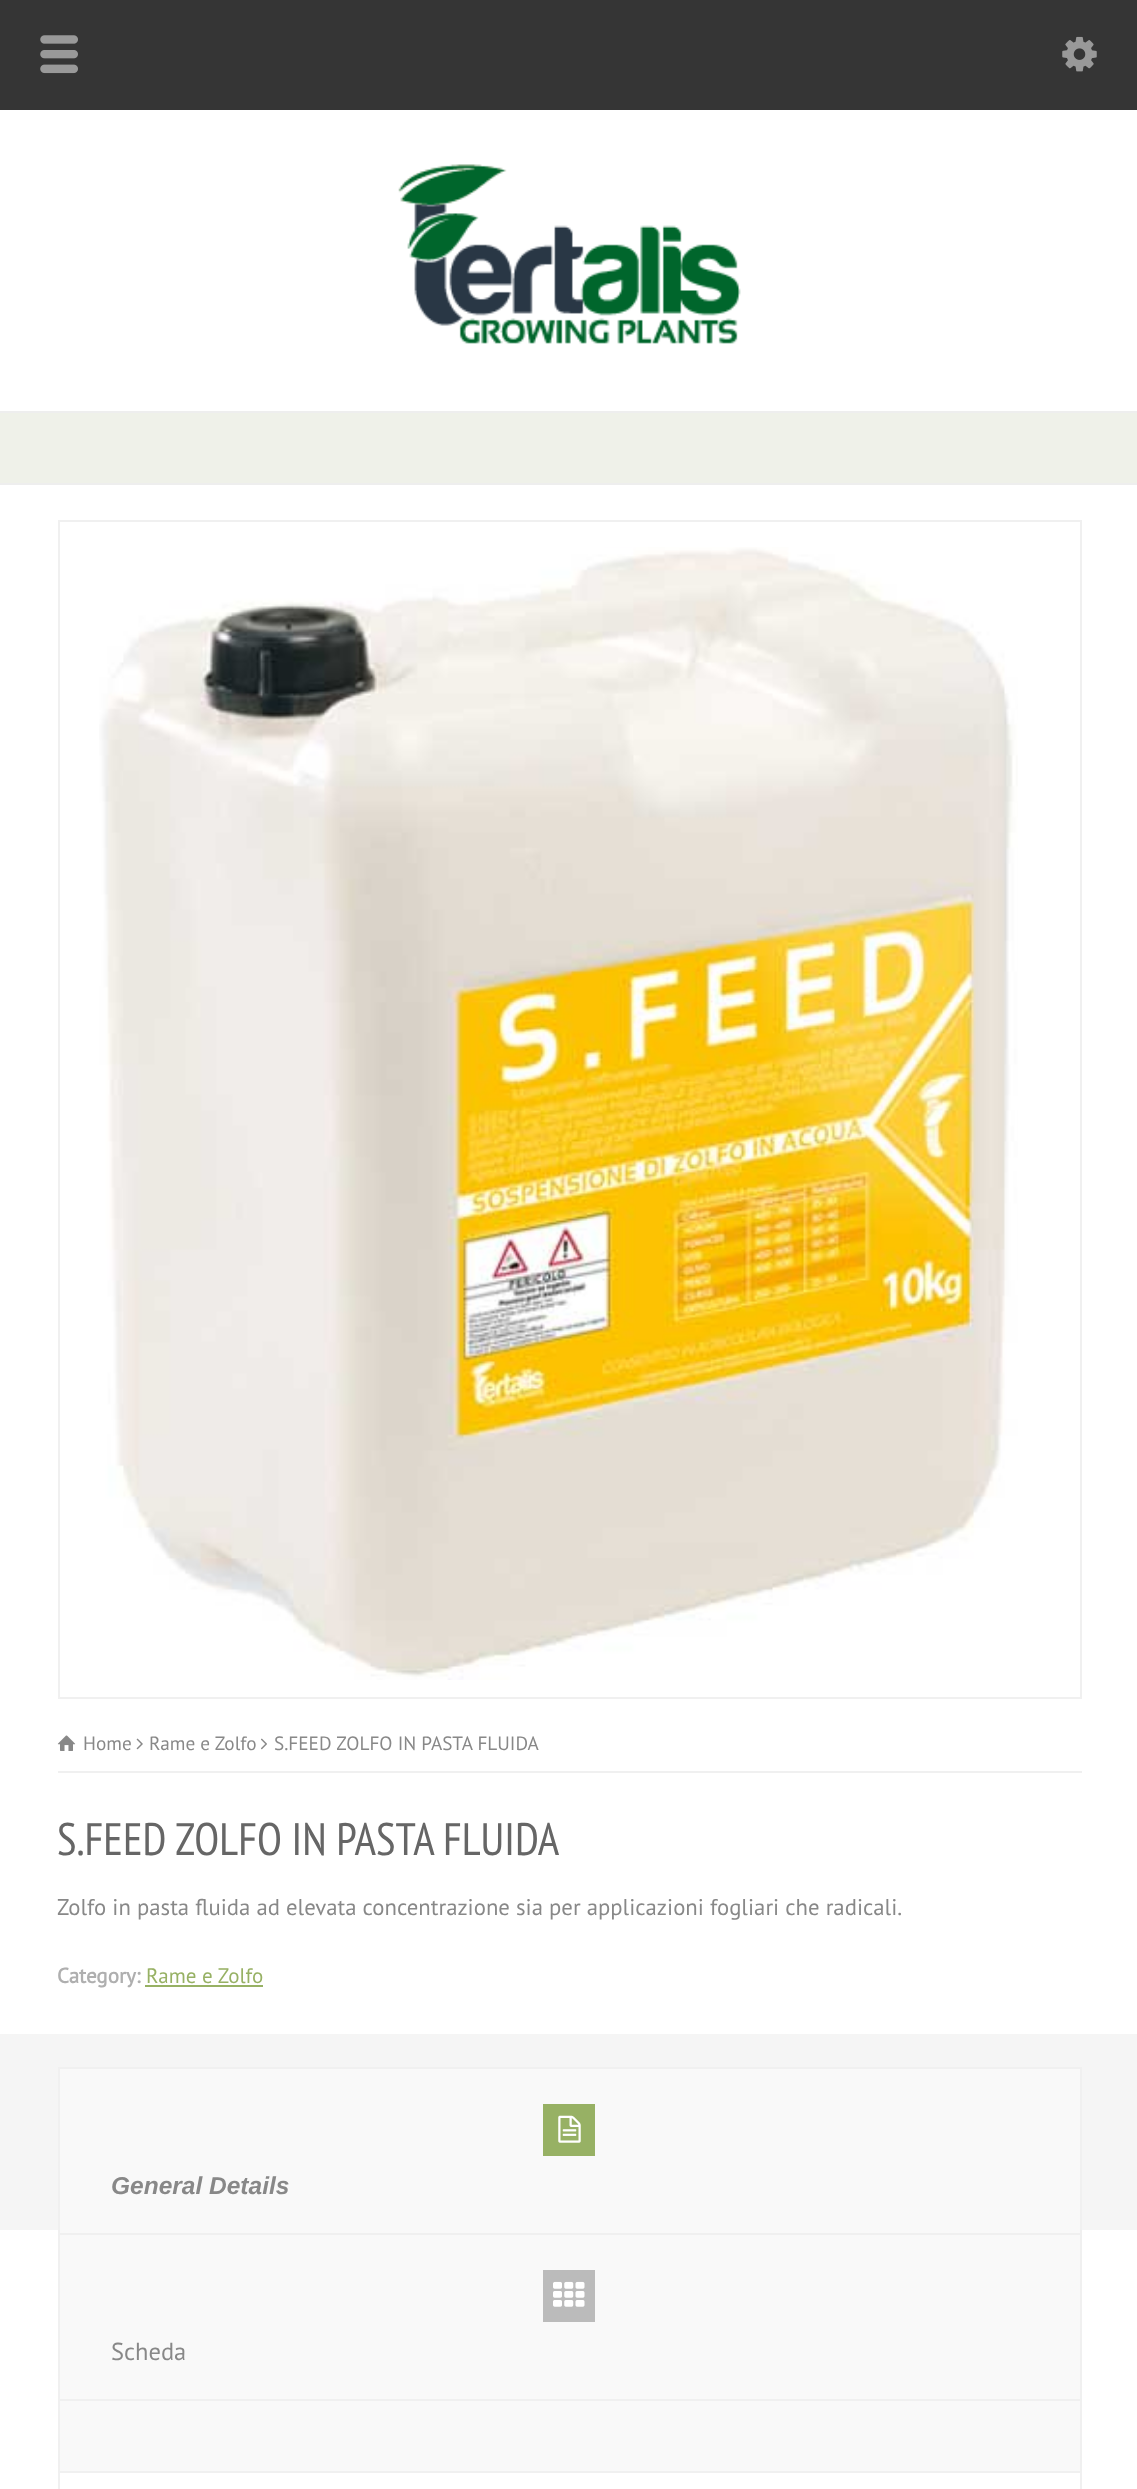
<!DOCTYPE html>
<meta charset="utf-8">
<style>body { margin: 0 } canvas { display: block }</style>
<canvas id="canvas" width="1137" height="2489"></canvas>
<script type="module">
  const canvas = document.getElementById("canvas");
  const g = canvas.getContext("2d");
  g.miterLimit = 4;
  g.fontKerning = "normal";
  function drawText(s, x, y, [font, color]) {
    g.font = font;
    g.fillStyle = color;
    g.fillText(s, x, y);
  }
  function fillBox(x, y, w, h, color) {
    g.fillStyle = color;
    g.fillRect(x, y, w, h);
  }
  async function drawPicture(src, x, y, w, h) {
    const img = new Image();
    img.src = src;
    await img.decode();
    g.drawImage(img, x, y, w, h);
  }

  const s1 = ["19.25px PT Sans", "#888888"];
  const s2 = ["45.5px PT Sans Narrow", "#666666"];
  const s3 = ["22.75px PT Sans", "#888888"];
  const s4 = ["bold 21px PT Sans", "#AFAFAF"];
  const s5 = ["21px PT Sans", "#97B164"];
  const s6 = ["italic bold 24.5px Liberation Sans", "#888888"];
  const s7 = ["24.5px PT Sans", "#888888"];

  fillBox(0, 0, 1137, 2489, "#FFFFFF");
  fillBox(0, 0, 1137, 110, "#353535");
  await drawPicture("pic1.png", 40, 35, 38, 39);
  await drawPicture("pic2.png", 1062, 36, 35, 36);
  await drawPicture("pic3.png", 398, 164, 343, 180);
  fillBox(0, 413, 1137, 70, "#EFF1E9");
  fillBox(0, 411, 1137, 2, "#EEEEEE");
  fillBox(0, 483, 1137, 2, "#EEEEEE");
  g.strokeStyle = "#F0F0F0";
  g.lineWidth = 2;
  g.strokeRect(59, 521, 1022, 1177);
  await drawPicture("pic4.png", 99, 547, 919, 1133);
  fillBox(58, 1771, 1024, 2, "#F0F0F0");
  await drawPicture("pic5.png", 57, 1735, 19, 16);
  drawText("Home", 83, 1750, s1);
  await drawPicture("pic6.png", 136, 1738, 7, 12);
  drawText("Rame e Zolfo", 149, 1750, s1);
  await drawPicture("pic7.png", 261, 1738, 6, 12);
  drawText("S.FEED ZOLFO IN PASTA FLUIDA", 274, 1750, s1);
  drawText("S.FEED ZOLFO IN PASTA FLUIDA", 57, 1855, s2);
  drawText("Zolfo in pasta fluida ad elevata concentrazione sia per applicazioni fogliari che radicali.", 57, 1915, s3);
  drawText("Category:", 57, 1983, s4);
  fillBox(145, 1985, 118, 2, "#97B164");
  drawText("Rame e Zolfo", 146, 1983, s5);
  fillBox(0, 2034, 1137, 196, "#F5F5F5");
  g.strokeRect(59, 2068, 1022, 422);
  fillBox(60, 2069, 1020, 402, "#F9F9F9");
  fillBox(60, 2233, 1020, 2, "#F0F0F0");
  fillBox(543, 2104, 52, 52, "#97B164");
  await drawPicture("pic8.png", 558, 2115, 23, 28);
  drawText("General Details", 111, 2194, s6);
  fillBox(60, 2399, 1020, 2, "#F0F0F0");
  fillBox(543, 2270, 52, 52, "#BBBBBB");
  await drawPicture("pic9.png", 553, 2281, 32, 26);
  drawText("Scheda", 111, 2360, s7);
  fillBox(60, 2471, 1020, 2, "#F0F0F0");
</script>
